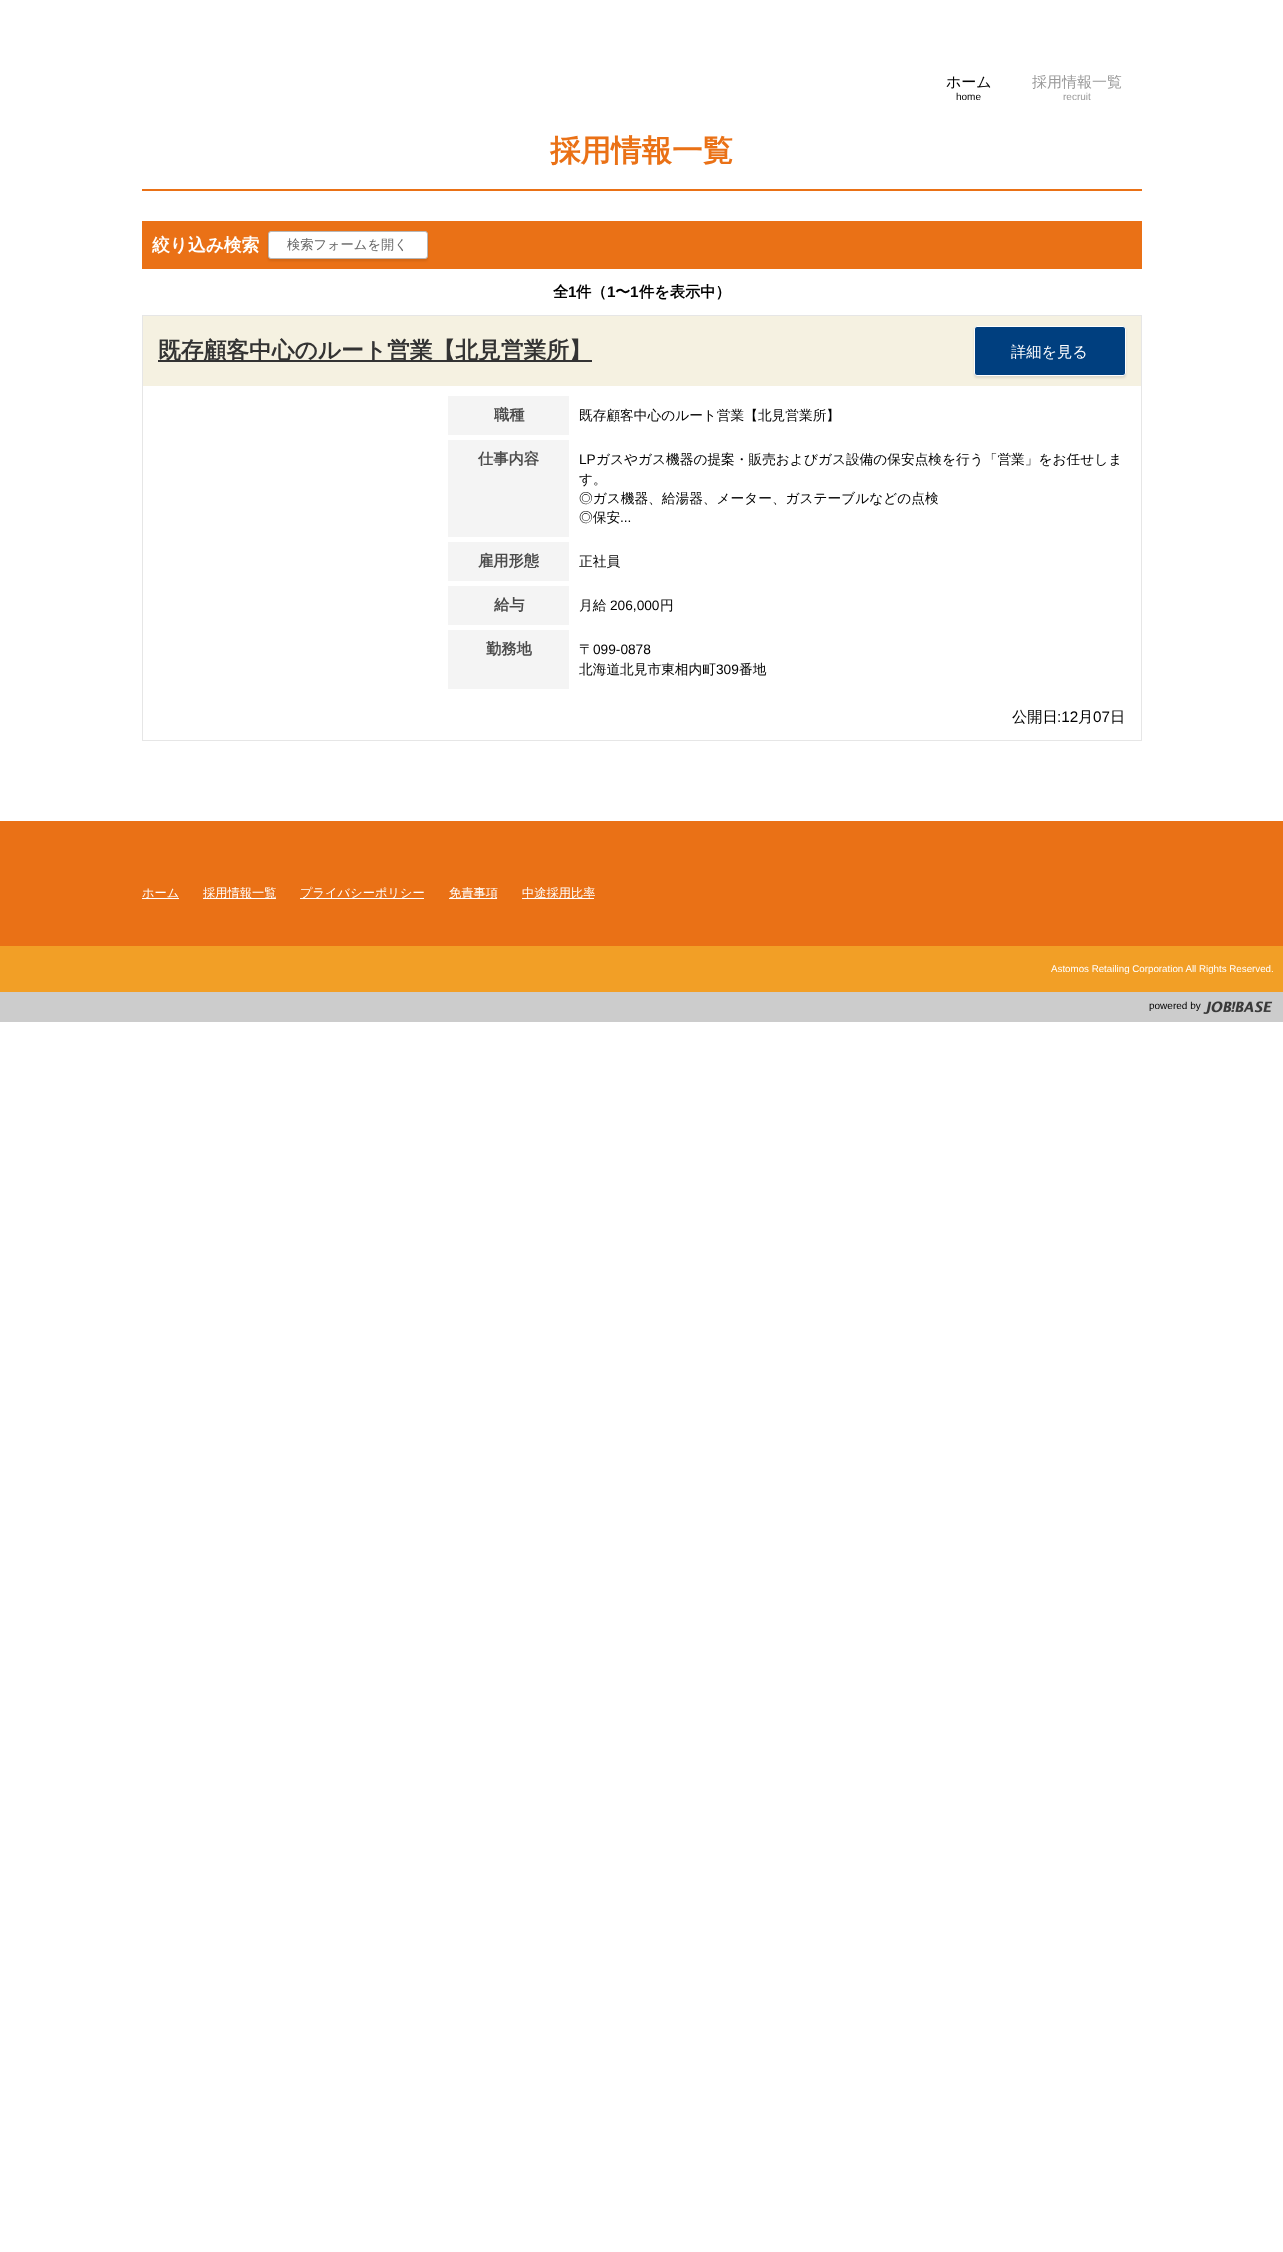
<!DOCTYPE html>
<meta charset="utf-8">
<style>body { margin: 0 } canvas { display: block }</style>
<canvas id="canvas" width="1283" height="2252"></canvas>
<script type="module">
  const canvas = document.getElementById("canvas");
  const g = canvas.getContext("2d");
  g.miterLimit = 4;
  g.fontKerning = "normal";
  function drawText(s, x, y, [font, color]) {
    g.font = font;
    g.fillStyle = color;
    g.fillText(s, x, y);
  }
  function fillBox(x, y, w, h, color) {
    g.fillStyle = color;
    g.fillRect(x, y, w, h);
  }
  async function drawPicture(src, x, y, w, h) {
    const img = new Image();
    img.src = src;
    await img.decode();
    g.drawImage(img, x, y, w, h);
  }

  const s1 = ["500 15px WenQuanYi Zen Hei", "#000000"];
  const s2 = ["10px Liberation Sans", "#000000"];
  const s3 = ["500 15px WenQuanYi Zen Hei", "#999999"];
  const s4 = ["10px Liberation Sans", "#999999"];
  const s5 = ["bold 30.5px WenQuanYi Zen Hei", "#EA7116"];
  const s6 = ["bold 17.75px WenQuanYi Zen Hei", "#FFFFFF"];
  const s7 = ["500 13.25px WenQuanYi Zen Hei", "#666666"];
  const s8 = ["bold 15.25px WenQuanYi Zen Hei", "#000000"];
  const s9 = ["bold 15.25px Liberation Sans", "#000000"];
  const s10 = ["bold 22.75px WenQuanYi Zen Hei", "#333333"];
  const s11 = ["500 15.25px WenQuanYi Zen Hei", "#FFFFFF"];
  const s12 = ["bold 15.25px WenQuanYi Zen Hei", "#4C4C4C"];
  const s13 = ["500 13.7px WenQuanYi Zen Hei", "#000000"];
  const s14 = ["13.7px Liberation Sans", "#000000"];
  const s15 = ["500 15.25px WenQuanYi Zen Hei", "#000000"];
  const s16 = ["15.25px Liberation Sans", "#000000"];
  const s17 = ["500 12.25px WenQuanYi Zen Hei", "#FFFFFF"];
  const s18 = ["9.75px Liberation Sans", "#FFFFFF"];

  fillBox(0, 0, 1283, 2252, "#FFFFFF");
  drawText("ホーム", 946, 87, s1);
  drawText("home", 956, 100, s2);
  drawText("採用情報一覧", 1032, 87, s3);
  drawText("recruit", 1063, 100, s4);
  drawText("採用情報一覧", 550, 161, s5);
  fillBox(142, 189, 1000, 2, "#EA7116");
  fillBox(142, 221, 1000, 48, "#EA7116");
  drawText("絞り込み検索", 152, 251, s6);
  g.fillStyle = "rgba(0, 0, 0, 0.1)";
  g.filter = "blur(1px)";
  g.beginPath();
  g.roundRect(268, 233, 160, 28, 3);
  g.fill();
  g.filter = "none";
  g.fillStyle = "#FFFFFF";
  g.beginPath();
  g.roundRect(268.5, 231.5, 159, 27, 2.5);
  g.fill();
  g.strokeStyle = "#B7B7B7";
  g.stroke();
  drawText("検索フォームを開く", 287, 249, s7);
  drawText("全", 553, 297, s8);
  drawText("1", 568, 297, s9);
  drawText("件（", 576, 297, s8);
  drawText("1", 607, 297, s9);
  drawText("〜", 615, 297, s8);
  drawText("1", 630, 297, s9);
  drawText("件を表示中）", 639, 297, s8);
  g.strokeStyle = "#E6E6E6";
  g.strokeRect(142.5, 315.5, 999, 425);
  fillBox(143, 316, 998, 70, "#F5F1E1");
  fillBox(158, 360, 434, 2, "#333333");
  drawText("既存顧客中心のルート営業【北見営業所】", 158, 358, s10);
  g.fillStyle = "rgba(0, 0, 0, 0.1)";
  g.filter = "blur(1px)";
  g.beginPath();
  g.roundRect(974, 328, 152, 50, 3);
  g.fill();
  g.filter = "none";
  g.fillStyle = "#003F7F";
  g.beginPath();
  g.roundRect(974.5, 326.5, 151, 49, 2.5);
  g.fill();
  g.strokeStyle = "#FFFFFF";
  g.stroke();
  drawText("詳細を見る", 1011, 357, s11);
  fillBox(448, 396, 121, 39, "#F4F4F4");
  drawText("職種", 494, 420, s12);
  drawText("既存顧客中心のルート営業【北見営業所】", 579, 420, s13);
  fillBox(448, 440, 121, 97, "#F4F4F4");
  drawText("仕事内容", 478, 464, s12);
  drawText("LP", 579, 464, s14);
  drawText("ガスやガス機器の提案・販売およびガス設備の保安点検を行う「営業」をお任せしま", 596, 464, s13);
  drawText("す。", 579, 484, s13);
  drawText("◎ガス機器、給湯器、メーター、ガステーブルなどの点検", 579, 503, s13);
  drawText("◎保安", 579, 522, s13);
  drawText("...", 620, 522, s14);
  fillBox(448, 542, 121, 39, "#F4F4F4");
  drawText("雇用形態", 478, 566, s12);
  drawText("正社員", 579, 566, s13);
  fillBox(448, 586, 121, 39, "#F4F4F4");
  drawText("給与", 494, 610, s12);
  drawText("月給", 579, 610, s13);
  drawText("206,000", 610, 610, s14);
  drawText("円", 660, 610, s13);
  fillBox(448, 630, 121, 59, "#F4F4F4");
  drawText("勤務地", 486, 654, s12);
  drawText("〒", 579, 654, s13);
  drawText("099-0878", 593, 654, s14);
  drawText("北海道北見市東相内町", 579, 674, s13);
  drawText("309", 716, 674, s14);
  drawText("番地", 739, 674, s13);
  drawText("公開日", 1012, 722, s15);
  drawText(":12", 1057, 722, s16);
  drawText("月", 1078, 722, s15);
  drawText("07", 1093, 722, s16);
  drawText("日", 1110, 722, s15);
  fillBox(0, 821, 1283, 125, "#EA7116");
  fillBox(142, 898, 37, 1, "#FFFFFF");
  drawText("ホーム", 142, 897, s17);
  fillBox(203, 898, 73, 1, "#FFFFFF");
  drawText("採用情報一覧", 203, 897, s17);
  fillBox(300, 898, 124, 1, "#FFFFFF");
  drawText("プライバシーポリシー", 300, 897, s17);
  fillBox(449, 898, 48, 1, "#FFFFFF");
  drawText("免責事項", 449, 897, s17);
  fillBox(522, 898, 72, 1, "#FFFFFF");
  drawText("中途採用比率", 522, 897, s17);
  fillBox(0, 946, 1283, 46, "#F29F26");
  drawText("Astomos Retailing Corporation All Rights Reserved.", 1051, 972, s18);
  fillBox(0, 992, 1283, 30, "#CCCCCC");
  drawText("powered by", 1149, 1009, s2);
  await drawPicture("pic1.png", 1203, 1001, 70, 13);
</script>
